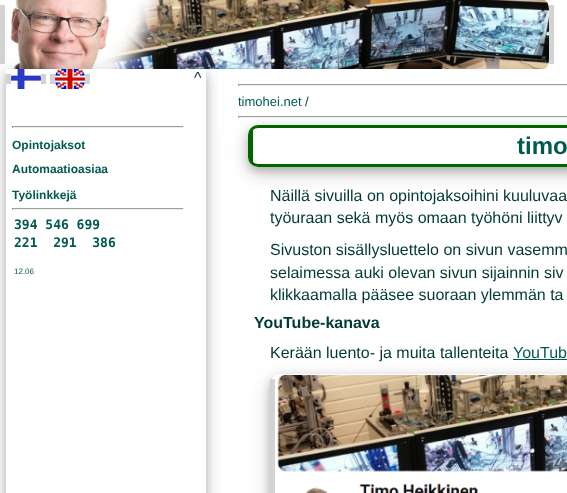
<!DOCTYPE html>
<meta charset="utf-8">
<style>body { margin: 0 } canvas { display: block }</style>
<canvas id="canvas" width="567" height="493"></canvas>
<script type="module">
  const canvas = document.getElementById("canvas");
  const g = canvas.getContext("2d");
  g.miterLimit = 4;
  g.fontKerning = "normal";
  function drawText(s, x, y, [font, color]) {
    g.font = font;
    g.fillStyle = color;
    g.fillText(s, x, y);
  }
  function fillBox(x, y, w, h, color) {
    g.fillStyle = color;
    g.fillRect(x, y, w, h);
  }
  async function drawPicture(src, x, y, w, h) {
    const img = new Image();
    img.src = src;
    await img.decode();
    g.drawImage(img, x, y, w, h);
  }
  let gradient;

  const s1 = ["16px Liberation Sans", "#003A32"];
  const s2 = ["bold 12px Liberation Sans", "#005A52"];
  const s3 = ["bold 13px DejaVu Sans Mono", "#005A52"];
  const s4 = ["8px Liberation Sans", "#005A52"];
  const s5 = ["13px Liberation Sans", "#005A52"];
  const s6 = ["13px Liberation Sans", "#003A32"];
  const s7 = ["bold 24px Liberation Sans", "#005A52"];
  const s8 = ["bold 16px Liberation Sans", "#003A32"];
  const s9 = ["16px Liberation Sans", "#005A52"];

  fillBox(0, 0, 567, 493, "#FFFFFF");
  fillBox(549, 5, 5, 59, "#D3D3D3");
  fillBox(0, 5, 5, 59, "#D3D3D3");
  await drawPicture("pic1.png", 10, 0, 539, 69);
  g.save();
  g.beginPath();
  g.moveTo(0, 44);
  g.lineTo(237, 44);
  g.lineTo(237, 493);
  g.lineTo(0, 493);
  g.closePath();
  g.moveTo(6, 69);
  g.lineTo(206, 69);
  g.lineTo(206, 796);
  g.lineTo(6, 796);
  g.closePath();
  g.clip("evenodd");
  g.fillStyle = "rgba(0, 0, 0, 0.19)";
  g.filter = "blur(10px)";
  g.beginPath();
  g.rect(6, 75, 200, 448);
  g.fill();
  g.filter = "none";
  g.restore();
  g.save();
  g.beginPath();
  g.moveTo(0, 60);
  g.lineTo(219, 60);
  g.lineTo(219, 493);
  g.lineTo(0, 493);
  g.closePath();
  g.moveTo(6, 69);
  g.lineTo(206, 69);
  g.lineTo(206, 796);
  g.lineTo(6, 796);
  g.closePath();
  g.clip("evenodd");
  g.fillStyle = "rgba(0, 0, 0, 0.2)";
  g.filter = "blur(4px)";
  g.beginPath();
  g.rect(6, 73, 200, 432);
  g.fill();
  g.filter = "none";
  g.restore();
  fillBox(6, 74, 5, 10, "#D3D3D3");
  await drawPicture("pic2.png", 11, 69, 30, 20);
  fillBox(41, 74, 5, 10, "#D3D3D3");
  fillBox(50, 74, 5, 10, "#D3D3D3");
  await drawPicture("pic3.png", 55, 69, 30, 20);
  fillBox(85, 74, 5, 10, "#D3D3D3");
  drawText("^", 194, 83, s1);
  fillBox(12, 126, 172, 1, "#9F9F9F");
  fillBox(183, 126, 1, 2, "#EEEEEE");
  fillBox(12, 127, 172, 1, "#EEEEEE");
  fillBox(12, 126, 1, 2, "#9F9F9F");
  drawText("Opintojaksot", 12, 149, s2);
  drawText("Automaatioasiaa", 12, 173, s2);
  drawText("Työlinkkejä", 12, 199, s2);
  fillBox(12, 208, 172, 1, "#9F9F9F");
  fillBox(183, 208, 1, 2, "#EEEEEE");
  fillBox(12, 209, 172, 1, "#EEEEEE");
  fillBox(12, 208, 1, 2, "#9F9F9F");
  drawText("394 546 699", 14, 229, s3);
  drawText("221  291  386", 14, 247, s3);
  drawText("12.06", 14, 274, s4);
  gradient = g.createLinearGradient(538, 75, 538, 130);
  gradient.addColorStop(0, "rgba(255, 255, 255, 0.93)");
  gradient.addColorStop(1, "#FFFFFF");
  g.fillStyle = gradient;
  g.fillRect(218, 76, 4, 54);
  fillBox(238, 84, 329, 1, "#9F9F9F");
  fillBox(238, 85, 329, 1, "#EEEEEE");
  fillBox(238, 84, 1, 2, "#9F9F9F");
  g.save();
  g.beginPath();
  g.moveTo(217, 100);
  g.lineTo(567, 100);
  g.lineTo(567, 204);
  g.lineTo(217, 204);
  g.closePath();
  g.moveTo(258, 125);
  g.lineTo(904, 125);
  g.bezierCurveTo(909.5, 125, 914, 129.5, 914, 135);
  g.lineTo(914, 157);
  g.bezierCurveTo(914, 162.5, 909.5, 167, 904, 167);
  g.lineTo(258, 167);
  g.bezierCurveTo(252.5, 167, 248, 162.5, 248, 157);
  g.lineTo(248, 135);
  g.bezierCurveTo(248, 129.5, 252.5, 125, 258, 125);
  g.closePath();
  g.clip("evenodd");
  g.fillStyle = "rgba(0, 0, 0, 0.19)";
  g.filter = "blur(10px)";
  g.beginPath();
  g.roundRect(248, 131, 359, 42, 10);
  g.fill();
  g.filter = "none";
  g.restore();
  drawText("timohei.net", 238, 106, s5);
  drawText("/", 305, 106, s6);
  g.save();
  g.beginPath();
  g.moveTo(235, 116);
  g.lineTo(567, 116);
  g.lineTo(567, 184);
  g.lineTo(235, 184);
  g.closePath();
  g.moveTo(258, 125);
  g.lineTo(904, 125);
  g.bezierCurveTo(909.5, 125, 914, 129.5, 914, 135);
  g.lineTo(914, 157);
  g.bezierCurveTo(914, 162.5, 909.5, 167, 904, 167);
  g.lineTo(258, 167);
  g.bezierCurveTo(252.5, 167, 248, 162.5, 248, 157);
  g.lineTo(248, 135);
  g.bezierCurveTo(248, 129.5, 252.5, 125, 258, 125);
  g.closePath();
  g.clip("evenodd");
  g.fillStyle = "rgba(0, 0, 0, 0.2)";
  g.filter = "blur(4px)";
  g.beginPath();
  g.roundRect(248, 129, 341, 42, 10);
  g.fill();
  g.filter = "none";
  g.restore();
  fillBox(238, 116, 329, 1, "#9F9F9F");
  fillBox(238, 117, 329, 1, "#EEEEEE");
  fillBox(238, 116, 1, 2, "#9F9F9F");
  g.beginPath();
  g.roundRect(249.5, 126.5, 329, 39, 8.5);
  g.strokeStyle = "#006400";
  g.lineWidth = 3;
  g.stroke();
  fillBox(251, 130, 2, 32, "#006400");
  drawText("timo", 517, 154, s7);
  drawText("Näillä sivuilla on opintojaksoihini kuuluvaa", 270, 201, s1);
  drawText("työuraan sekä myös omaan työhöni liittyv", 270, 223, s1);
  drawText("Sivuston sisällysluettelo on sivun vasemm", 270, 255, s1);
  drawText("selaimessa auki olevan sivun sijainnin siv", 270, 278, s1);
  drawText("klikkaamalla pääsee suoraan ylemmän ta", 270, 300, s1);
  drawText("YouTube-kanava", 254, 328, s8);
  drawText("Kerään luento- ja muita tallenteita", 270, 358, s1);
  drawText("YouTub", 513, 358, s9);
  fillBox(513, 359, 54, 1, "#005A52");
  g.save();
  g.beginPath();
  g.moveTo(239, 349);
  g.lineTo(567, 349);
  g.lineTo(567, 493);
  g.lineTo(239, 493);
  g.closePath();
  g.moveTo(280, 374);
  g.lineTo(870, 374);
  g.bezierCurveTo(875.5, 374, 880, 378.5, 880, 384);
  g.lineTo(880, 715);
  g.bezierCurveTo(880, 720.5, 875.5, 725, 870, 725);
  g.lineTo(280, 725);
  g.bezierCurveTo(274.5, 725, 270, 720.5, 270, 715);
  g.lineTo(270, 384);
  g.bezierCurveTo(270, 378.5, 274.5, 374, 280, 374);
  g.closePath();
  g.clip("evenodd");
  g.fillStyle = "rgba(0, 0, 0, 0.19)";
  g.filter = "blur(10px)";
  g.beginPath();
  g.roundRect(270, 380, 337, 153, 10);
  g.fill();
  g.filter = "none";
  g.restore();
  g.save();
  g.beginPath();
  g.moveTo(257, 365);
  g.lineTo(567, 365);
  g.lineTo(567, 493);
  g.lineTo(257, 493);
  g.closePath();
  g.moveTo(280, 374);
  g.lineTo(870, 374);
  g.bezierCurveTo(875.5, 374, 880, 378.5, 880, 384);
  g.lineTo(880, 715);
  g.bezierCurveTo(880, 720.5, 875.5, 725, 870, 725);
  g.lineTo(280, 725);
  g.bezierCurveTo(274.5, 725, 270, 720.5, 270, 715);
  g.lineTo(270, 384);
  g.bezierCurveTo(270, 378.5, 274.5, 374, 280, 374);
  g.closePath();
  g.clip("evenodd");
  g.fillStyle = "rgba(0, 0, 0, 0.2)";
  g.filter = "blur(4px)";
  g.beginPath();
  g.roundRect(270, 378, 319, 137, 10);
  g.fill();
  g.filter = "none";
  g.restore();
  fillBox(270, 379, 5, 114, "#D3D3D3");
  await drawPicture("pic4.png", 277, 375, 290, 118);
</script>
